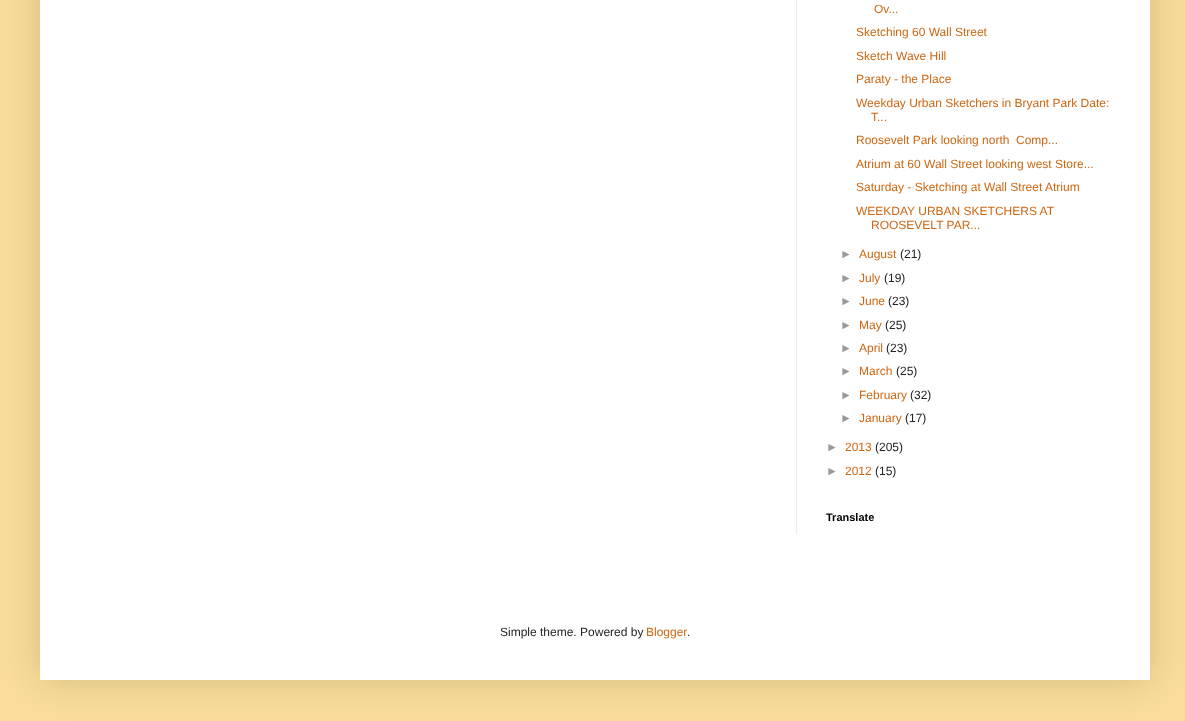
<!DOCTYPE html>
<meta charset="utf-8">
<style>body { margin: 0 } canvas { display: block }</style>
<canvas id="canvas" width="1185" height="721"></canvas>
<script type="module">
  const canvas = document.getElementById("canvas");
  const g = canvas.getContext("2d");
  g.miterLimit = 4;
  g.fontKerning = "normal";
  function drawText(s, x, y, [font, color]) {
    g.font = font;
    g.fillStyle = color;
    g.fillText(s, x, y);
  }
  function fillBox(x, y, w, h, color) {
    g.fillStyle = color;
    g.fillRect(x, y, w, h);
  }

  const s1 = ["12px Liberation Sans", "#CC6611"];
  const s2 = ["12px Liberation Sans", "#999999"];
  const s3 = ["12px Liberation Sans", "#222222"];
  const s4 = ["bold 11px Liberation Sans", "#000000"];

  fillBox(0, 0, 1185, 721, "#F9DD99");
  g.fillStyle = "rgba(0, 0, 0, 0.15)";
  g.filter = "blur(20px)";
  g.beginPath();
  g.rect(40, -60, 1110, 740);
  g.fill();
  g.filter = "none";
  fillBox(40, 0, 1110, 680, "#FFFFFF");
  fillBox(796, 0, 1, 534, "#EEEEEE");
  drawText("Ov...", 874, 13, s1);
  drawText("Sketching 60 Wall Street", 856, 36, s1);
  drawText("Sketch Wave Hill", 856, 60, s1);
  drawText("Paraty - the Place", 856, 83, s1);
  drawText("Weekday Urban Sketchers in Bryant Park Date:", 856, 107, s1);
  drawText("T...", 871, 121, s1);
  drawText("Roosevelt Park looking north", 856, 144, s1);
  drawText("Comp...", 1016, 144, s1);
  drawText("Atrium at 60 Wall Street looking west Store...", 856, 168, s1);
  drawText("Saturday - Sketching at Wall Street Atrium", 856, 191, s1);
  drawText("WEEKDAY URBAN SKETCHERS AT", 856, 215, s1);
  drawText("ROOSEVELT PAR...", 871, 229, s1);
  drawText("►", 840, 258, s2);
  drawText("August", 859, 258, s1);
  drawText("(21)", 900, 258, s3);
  drawText("►", 840, 282, s2);
  drawText("July", 859, 282, s1);
  drawText("(19)", 884, 282, s3);
  drawText("►", 840, 305, s2);
  drawText("June", 859, 305, s1);
  drawText("(23)", 888, 305, s3);
  drawText("►", 840, 329, s2);
  drawText("May", 859, 329, s1);
  drawText("(25)", 885, 329, s3);
  drawText("►", 840, 352, s2);
  drawText("April", 859, 352, s1);
  drawText("(23)", 886, 352, s3);
  drawText("►", 840, 375, s2);
  drawText("March", 859, 375, s1);
  drawText("(25)", 896, 375, s3);
  drawText("►", 840, 399, s2);
  drawText("February", 859, 399, s1);
  drawText("(32)", 910, 399, s3);
  drawText("►", 840, 422, s2);
  drawText("January", 859, 422, s1);
  drawText("(17)", 905, 422, s3);
  drawText("►", 826, 451, s2);
  drawText("2013", 845, 451, s1);
  drawText("(205)", 875, 451, s3);
  drawText("►", 826, 475, s2);
  drawText("2012", 845, 475, s1);
  drawText("(15)", 875, 475, s3);
  drawText("Translate", 826, 521, s4);
  drawText("Simple theme. Powered by", 500, 636, s3);
  drawText("Blogger", 646, 636, s1);
  drawText(".", 687, 636, s3);
</script>
